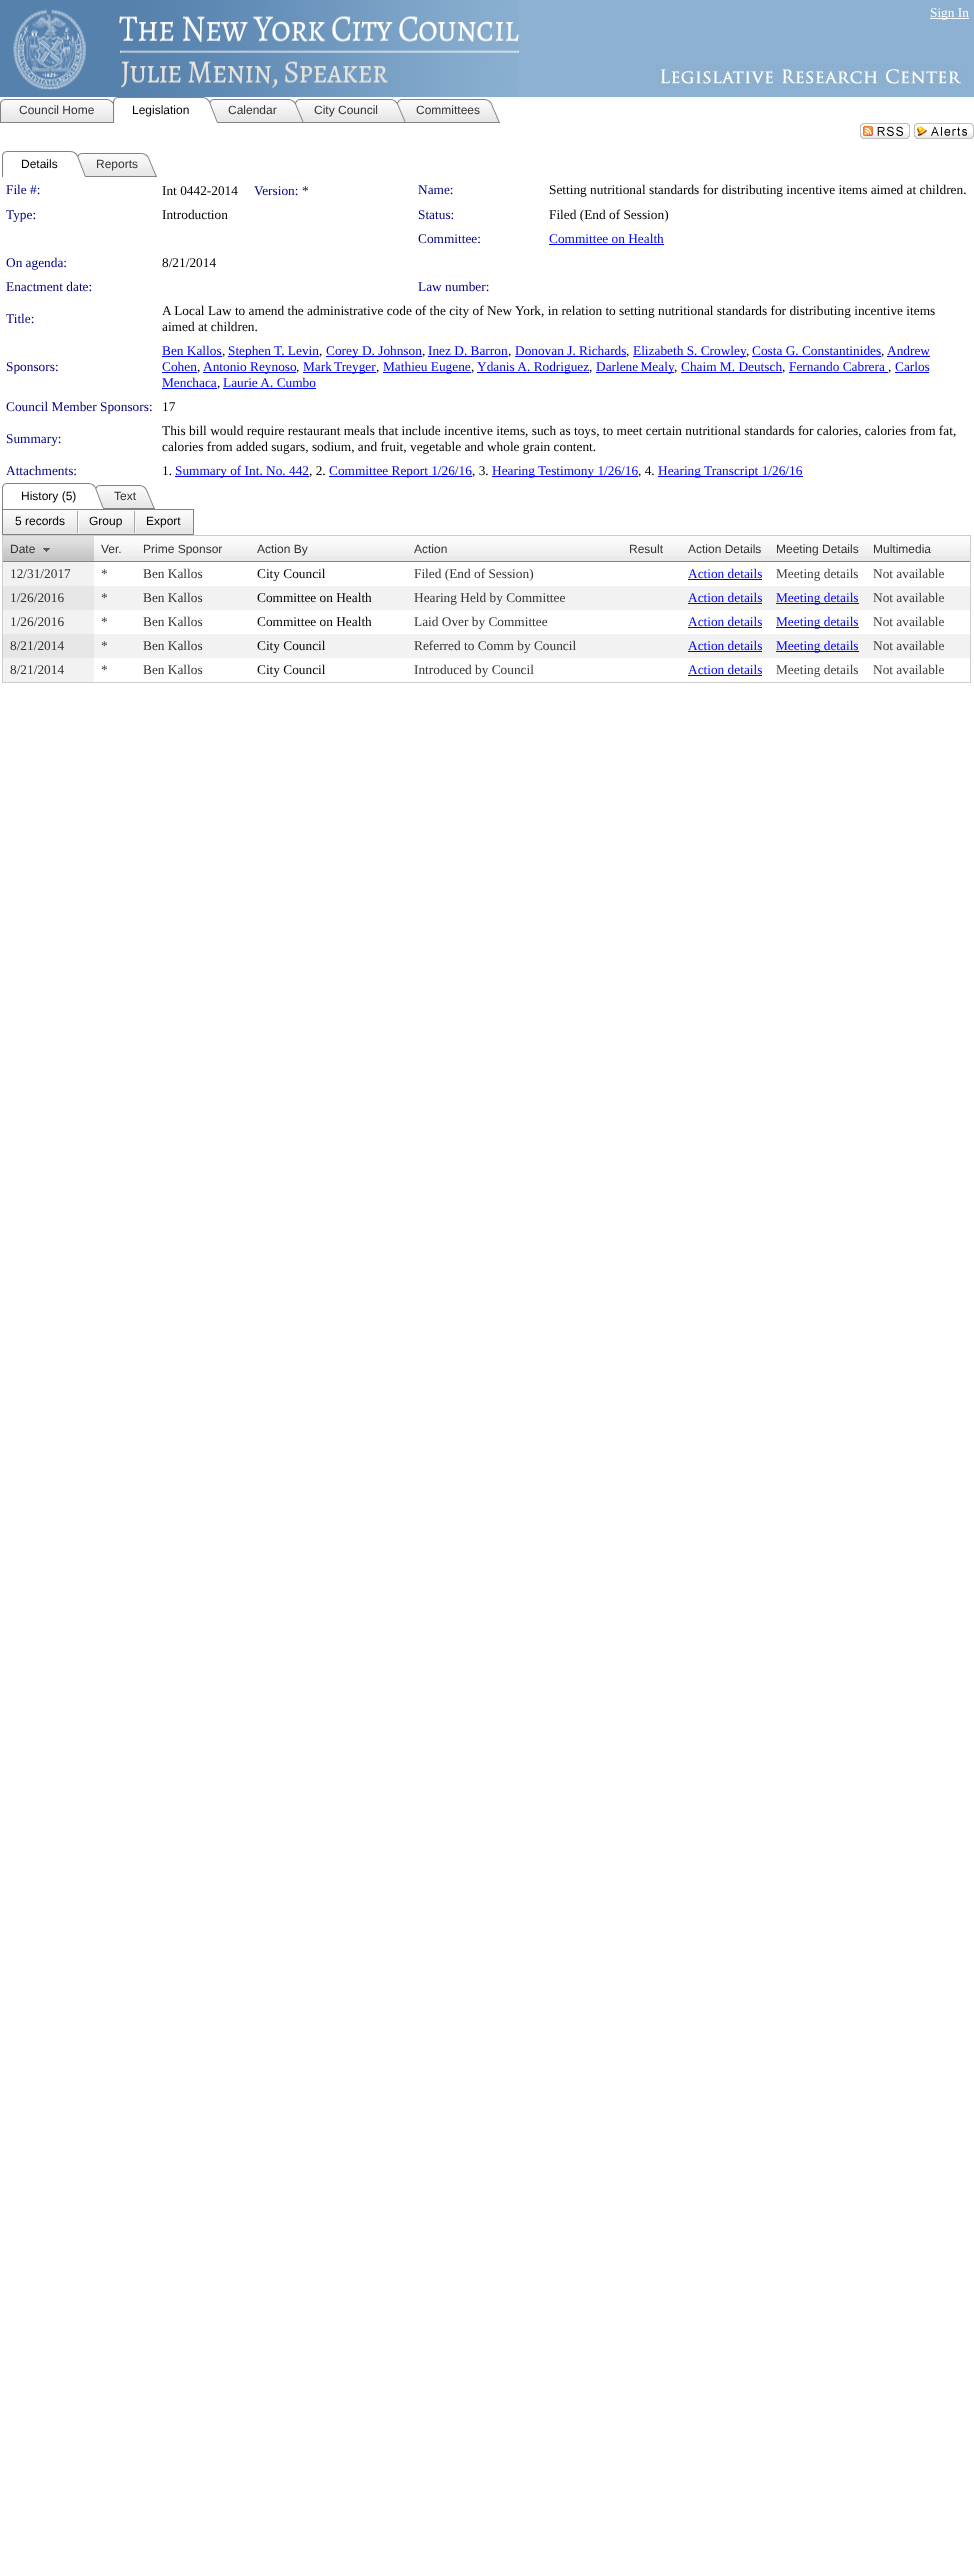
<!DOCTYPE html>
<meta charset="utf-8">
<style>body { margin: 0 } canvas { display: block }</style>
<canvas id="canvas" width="974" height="2570"></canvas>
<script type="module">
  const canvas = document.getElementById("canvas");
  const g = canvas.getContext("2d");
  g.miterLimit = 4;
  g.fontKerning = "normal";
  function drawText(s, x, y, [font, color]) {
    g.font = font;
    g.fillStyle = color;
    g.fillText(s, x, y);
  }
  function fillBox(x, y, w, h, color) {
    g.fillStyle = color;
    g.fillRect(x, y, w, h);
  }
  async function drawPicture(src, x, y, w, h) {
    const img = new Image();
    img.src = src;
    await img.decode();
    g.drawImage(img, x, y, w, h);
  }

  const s1 = ["13.33px Liberation Serif", "#FFFFFF"];
  const s2 = ["12px Liberation Sans", "#333333"];
  const s3 = ["12px Liberation Sans", "#000000"];
  const s4 = ["13.33px Liberation Serif", "#000080"];
  const s5 = ["13.33px Liberation Serif", "#000000"];
  const s6 = ["13.33px Liberation Serif", "#0000FF"];
  const s7 = ["13.33px Liberation Serif", "#333333"];
  const s8 = ["13.33px Liberation Serif", "#3D3D3D"];

  fillBox(0, 0, 974, 2570, "#FFFFFF");
  fillBox(519, 0, 455, 97, "#8CB1D2");
  await drawPicture("pic1.png", 0, 0, 519, 97);
  await drawPicture("pic2.png", 656, 64, 312, 24);
  fillBox(930, 18, 39, 1, "#FFFFFF");
  drawText("Sign In", 930, 17, s1);
  await drawPicture("pic3.png", 0, 99, 9, 24);
  await drawPicture("pic4.png", 9, 99, 104, 24);
  drawText("Council Home", 19, 114, s2);
  await drawPicture("pic5.png", 113, 97, 10, 26);
  await drawPicture("pic6.png", 122, 97, 87, 5);
  drawText("Legislation", 132, 114, s3);
  await drawPicture("pic7.png", 209, 99, 9, 24);
  await drawPicture("pic8.png", 218, 99, 77, 24);
  drawText("Calendar", 228, 114, s2);
  await drawPicture("pic9.png", 295, 99, 9, 24);
  await drawPicture("pic10.png", 304, 99, 93, 24);
  drawText("City Council", 314, 114, s2);
  await drawPicture("pic11.png", 397, 99, 9, 24);
  await drawPicture("pic12.png", 406, 99, 94, 24);
  drawText("Committees", 416, 114, s2);
  await drawPicture("pic13.png", 860, 123, 50, 16);
  await drawPicture("pic14.png", 914, 123, 60, 16);
  await drawPicture("pic5.png", 2, 151, 10, 26);
  await drawPicture("pic15.png", 11, 151, 66, 5);
  drawText("Details", 21, 168, s3);
  await drawPicture("pic16.png", 77, 153, 9, 24);
  await drawPicture("pic17.png", 86, 153, 71, 24);
  drawText("Reports", 96, 168, s2);
  drawText("File #:", 6, 194, s4);
  drawText("Int 0442-2014", 162, 195, s5);
  drawText("Version:", 254, 195, s4);
  drawText("*", 302, 195, s5);
  drawText("Name:", 418, 194, s4);
  drawText("Setting nutritional standards for distributing incentive items aimed at children.", 549, 194, s5);
  drawText("Type:", 6, 219, s4);
  drawText("Introduction", 162, 219, s5);
  drawText("Status:", 418, 219, s4);
  drawText("Filed (End of Session)", 549, 219, s5);
  drawText("Committee:", 418, 243, s4);
  drawText("Committee on Health", 549, 243, s6);
  fillBox(549, 244, 115, 1, "#0000FF");
  drawText("On agenda:", 6, 267, s4);
  drawText("8/21/2014", 162, 267, s5);
  drawText("Enactment date:", 6, 291, s4);
  drawText("Law number:", 418, 291, s4);
  drawText("Title:", 6, 323, s4);
  drawText("A Local Law to amend the administrative code of the city of New York, in relation to setting nutritional standards for distributing incentive items", 162, 315, s5);
  drawText("aimed at children.", 162, 331, s5);
  drawText("Sponsors:", 6, 371, s4);
  drawText("Ben Kallos", 162, 355, s6);
  drawText(",", 222, 355, s5);
  fillBox(162, 356, 60, 1, "#0000FF");
  fillBox(228, 356, 91, 1, "#0000FF");
  drawText("Stephen T. Levin", 228, 355, s6);
  drawText(",", 319, 355, s5);
  fillBox(326, 356, 96, 1, "#0000FF");
  drawText("Corey D. Johnson", 326, 355, s6);
  drawText(",", 422, 355, s5);
  drawText("Inez D. Barron", 428, 355, s6);
  drawText(",", 508, 355, s5);
  fillBox(428, 356, 80, 1, "#0000FF");
  drawText("Donovan J. Richards", 515, 355, s6);
  drawText(",", 626, 355, s5);
  fillBox(515, 356, 111, 1, "#0000FF");
  fillBox(633, 356, 113, 1, "#0000FF");
  drawText("Elizabeth S. Crowley", 633, 355, s6);
  drawText(",", 746, 355, s5);
  drawText("Costa G. Constantinides", 752, 355, s6);
  drawText(",", 881, 355, s5);
  fillBox(752, 356, 129, 1, "#0000FF");
  fillBox(887, 356, 43, 1, "#0000FF");
  drawText("Andrew", 887, 355, s6);
  drawText("Cohen", 162, 371, s6);
  drawText(",", 197, 371, s5);
  fillBox(162, 372, 35, 1, "#0000FF");
  fillBox(203, 372, 93, 1, "#0000FF");
  drawText("Antonio Reynoso", 203, 371, s6);
  drawText(",", 296, 371, s5);
  fillBox(303, 372, 73, 1, "#0000FF");
  g.wordSpacing = "-1px";
  drawText("Mark Treyger", 303, 371, s6);
  g.wordSpacing = "0px";
  drawText(",", 376, 371, s5);
  fillBox(383, 372, 88, 1, "#0000FF");
  drawText("Mathieu Eugene", 383, 371, s6);
  drawText(",", 471, 371, s5);
  fillBox(477, 372, 112, 1, "#0000FF");
  drawText("Ydanis A. Rodriguez", 477, 371, s6);
  drawText(",", 589, 371, s5);
  fillBox(596, 372, 78, 1, "#0000FF");
  g.wordSpacing = "-1px";
  drawText("Darlene Mealy", 596, 371, s6);
  g.wordSpacing = "0px";
  drawText(",", 674, 371, s5);
  drawText("Chaim M. Deutsch", 681, 371, s6);
  drawText(",", 782, 371, s5);
  fillBox(681, 372, 101, 1, "#0000FF");
  drawText("Fernando Cabrera", 789, 371, s6);
  drawText(",", 888, 371, s5);
  fillBox(789, 372, 99, 1, "#0000FF");
  fillBox(895, 372, 34, 1, "#0000FF");
  drawText("Carlos", 895, 371, s6);
  drawText("Menchaca", 162, 387, s6);
  drawText(",", 217, 387, s5);
  fillBox(162, 388, 55, 1, "#0000FF");
  fillBox(223, 388, 93, 1, "#0000FF");
  drawText("Laurie A. Cumbo", 223, 387, s6);
  drawText("Council Member Sponsors:", 6, 411, s4);
  drawText("17", 162, 411, s5);
  drawText("Summary:", 6, 443, s4);
  drawText("This bill would require restaurant meals that include incentive items, such as toys, to meet certain nutritional standards for calories, calories from fat,", 162, 435, s5);
  drawText("calories from added sugars, sodium, and fruit, vegetable and whole grain content.", 162, 451, s5);
  drawText("Attachments:", 6, 475, s4);
  drawText("1.", 162, 475, s5);
  fillBox(175, 476, 134, 1, "#0000FF");
  drawText("Summary of Int. No. 442", 175, 475, s6);
  drawText(", 2.", 309, 475, s5);
  fillBox(329, 476, 143, 1, "#0000FF");
  drawText("Committee Report 1/26/16", 329, 475, s6);
  drawText(", 3.", 472, 475, s5);
  fillBox(492, 476, 146, 1, "#0000FF");
  drawText("Hearing Testimony 1/26/16", 492, 475, s6);
  drawText(", 4.", 638, 475, s5);
  fillBox(658, 476, 145, 1, "#0000FF");
  drawText("Hearing Transcript 1/26/16", 658, 475, s6);
  await drawPicture("pic18.png", 2, 483, 9, 26);
  await drawPicture("pic19.png", 11, 483, 84, 5);
  drawText("History (5)", 21, 500, s3);
  await drawPicture("pic16.png", 95, 485, 9, 24);
  await drawPicture("pic20.png", 104, 485, 51, 24);
  drawText("Text", 114, 500, s2);
  fillBox(3, 528, 190, 6, "#E6E6E6");
  await drawPicture("pic21.png", 3, 510, 190, 18);
  g.strokeStyle = "#828282";
  g.strokeRect(2.5, 509.5, 191, 25);
  drawText("5 records", 15, 525, s3);
  await drawPicture("pic22.png", 77, 511, 2, 22);
  drawText("Group", 89, 525, s3);
  await drawPicture("pic23.png", 134, 511, 2, 22);
  drawText("Export", 146, 525, s3);
  g.strokeStyle = "#CCCCCC";
  g.strokeRect(2.5, 535.5, 968, 147);
  fillBox(3, 557, 91, 4, "#C4C4C4");
  await drawPicture("pic24.png", 3, 536, 91, 21);
  fillBox(3, 561, 967, 1, "#828282");
  drawText("Date", 10, 553, s2);
  await drawPicture("pic25.png", 43, 548, 7, 4);
  fillBox(94, 556, 876, 5, "#EAEAEA");
  await drawPicture("pic26.png", 94, 536, 42, 20);
  drawText("Ver.", 101, 553, s2);
  await drawPicture("pic27.png", 136, 536, 114, 20);
  drawText("Prime Sponsor", 143, 553, s2);
  await drawPicture("pic28.png", 250, 536, 157, 20);
  drawText("Action By", 257, 553, s2);
  await drawPicture("pic29.png", 407, 536, 215, 20);
  drawText("Action", 414, 553, s2);
  await drawPicture("pic30.png", 622, 536, 59, 20);
  drawText("Result", 629, 553, s2);
  await drawPicture("pic31.png", 681, 536, 88, 20);
  drawText("Action Details", 688, 553, s2);
  await drawPicture("pic32.png", 769, 536, 97, 20);
  drawText("Meeting Details", 776, 553, s2);
  await drawPicture("pic33.png", 866, 536, 104, 20);
  drawText("Multimedia", 873, 553, s2);
  fillBox(3, 562, 91, 24, "#F2F2F2");
  drawText("12/31/2017", 10, 578, s7);
  drawText("*", 101, 578, s7);
  drawText("Ben Kallos", 143, 578, s7);
  drawText("City Council", 257, 578, s5);
  drawText("Filed (End of Session)", 414, 578, s7);
  drawText("Action details", 688, 578, s6);
  fillBox(688, 579, 74, 1, "#0000FF");
  drawText("Meeting details", 776, 578, s8);
  drawText("Not available", 873, 578, s8);
  fillBox(94, 586, 876, 24, "#F2F2F2");
  fillBox(3, 586, 91, 24, "#E6E6E6");
  drawText("1/26/2016", 10, 602, s7);
  drawText("*", 101, 602, s7);
  drawText("Ben Kallos", 143, 602, s7);
  drawText("Committee on Health", 257, 602, s5);
  drawText("Hearing Held by Committee", 414, 602, s7);
  drawText("Action details", 688, 602, s6);
  fillBox(688, 603, 74, 1, "#0000FF");
  fillBox(776, 603, 83, 1, "#0000FF");
  drawText("Meeting details", 776, 602, s6);
  drawText("Not available", 873, 602, s8);
  fillBox(3, 610, 91, 24, "#F2F2F2");
  drawText("1/26/2016", 10, 626, s7);
  drawText("*", 101, 626, s7);
  drawText("Ben Kallos", 143, 626, s7);
  drawText("Committee on Health", 257, 626, s5);
  drawText("Laid Over by Committee", 414, 626, s7);
  drawText("Action details", 688, 626, s6);
  fillBox(688, 627, 74, 1, "#0000FF");
  fillBox(776, 627, 83, 1, "#0000FF");
  drawText("Meeting details", 776, 626, s6);
  drawText("Not available", 873, 626, s8);
  fillBox(94, 634, 876, 24, "#F2F2F2");
  fillBox(3, 634, 91, 24, "#E6E6E6");
  drawText("8/21/2014", 10, 650, s7);
  drawText("*", 101, 650, s7);
  drawText("Ben Kallos", 143, 650, s7);
  drawText("City Council", 257, 650, s5);
  drawText("Referred to Comm by Council", 414, 650, s7);
  drawText("Action details", 688, 650, s6);
  fillBox(688, 651, 74, 1, "#0000FF");
  fillBox(776, 651, 83, 1, "#0000FF");
  drawText("Meeting details", 776, 650, s6);
  drawText("Not available", 873, 650, s8);
  fillBox(3, 658, 91, 24, "#F2F2F2");
  drawText("8/21/2014", 10, 674, s7);
  drawText("*", 101, 674, s7);
  drawText("Ben Kallos", 143, 674, s7);
  drawText("City Council", 257, 674, s5);
  drawText("Introduced by Council", 414, 674, s7);
  drawText("Action details", 688, 674, s6);
  fillBox(688, 675, 74, 1, "#0000FF");
  drawText("Meeting details", 776, 674, s8);
  drawText("Not available", 873, 674, s8);
</script>
